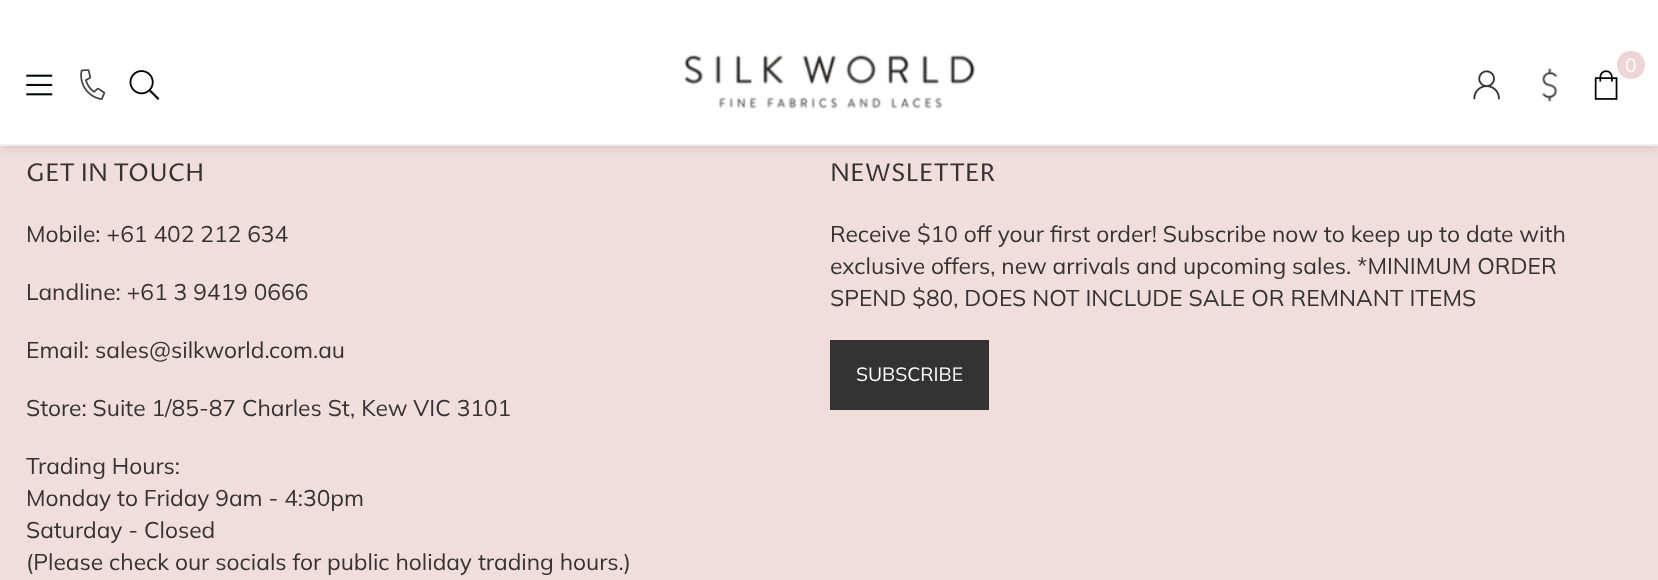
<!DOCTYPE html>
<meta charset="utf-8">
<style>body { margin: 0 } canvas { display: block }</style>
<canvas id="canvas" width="1658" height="580"></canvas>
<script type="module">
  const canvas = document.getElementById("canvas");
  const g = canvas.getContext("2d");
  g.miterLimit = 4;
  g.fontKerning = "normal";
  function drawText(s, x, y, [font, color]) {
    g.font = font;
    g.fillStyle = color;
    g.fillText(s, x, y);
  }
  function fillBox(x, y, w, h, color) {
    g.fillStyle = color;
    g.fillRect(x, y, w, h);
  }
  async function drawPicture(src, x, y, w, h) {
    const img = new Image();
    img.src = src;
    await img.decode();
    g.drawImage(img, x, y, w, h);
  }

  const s1 = ["19.25px Muli", "#FFFFFF"];
  const s2 = ["24.5px Proza Libre", "#333333"];
  const s3 = ["22.75px Muli", "#333333"];

  fillBox(0, 0, 1658, 580, "#F1DDDC");
  g.fillStyle = "rgba(0, 0, 0, 0.2)";
  g.filter = "blur(6px)";
  g.beginPath();
  g.rect(0, 0, 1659, 145);
  g.fill();
  g.filter = "none";
  fillBox(0, 0, 1658, 144, "#FFFFFF");
  fillBox(0, 144, 1658, 2, "#EEEEEE");
  await drawPicture("pic1.png", 684, 55, 291, 54);
  await drawPicture("pic2.png", 1594, 70, 24, 30);
  g.fillStyle = "#ECD5D4";
  g.beginPath();
  g.arc(1631, 65, 14, 0, Math.PI * 2);
  g.fill();
  drawText("0", 1625, 72, s1);
  await drawPicture("pic3.png", 1473, 70, 27, 30);
  await drawPicture("pic4.png", 1541, 68, 17, 34);
  await drawPicture("pic5.png", 26, 74, 27, 22);
  await drawPicture("pic6.png", 80, 69, 26, 31);
  await drawPicture("pic7.png", 129, 70, 31, 30);
  drawText("GET IN TOUCH", 26, 181, s2);
  drawText("Mobile: +61 402 212 634", 26, 242, s3);
  drawText("Landline: +61 3 9419 0666", 26, 300, s3);
  drawText("Email: sales@silkworld.com.au", 26, 358, s3);
  drawText("Store: Suite 1/85-87 Charles St, Kew VIC 3101", 26, 416, s3);
  drawText("Trading Hours:", 26, 474, s3);
  drawText("Monday to Friday 9am - 4:30pm", 26, 506, s3);
  drawText("Saturday - Closed", 26, 538, s3);
  drawText("(Please check our socials for public holiday trading hours.)", 26, 570, s3);
  drawText("NEWSLETTER", 830, 181, s2);
  drawText("Receive $10 off your first order! Subscribe now to keep up to date with", 830, 242, s3);
  drawText("exclusive offers, new arrivals and upcoming sales. *MINIMUM ORDER", 830, 274, s3);
  drawText("SPEND $80, DOES NOT INCLUDE SALE OR REMNANT ITEMS", 830, 306, s3);
  fillBox(830, 340, 159, 70, "#333333");
  drawText("SUBSCRIBE", 856, 381, s1);
</script>
